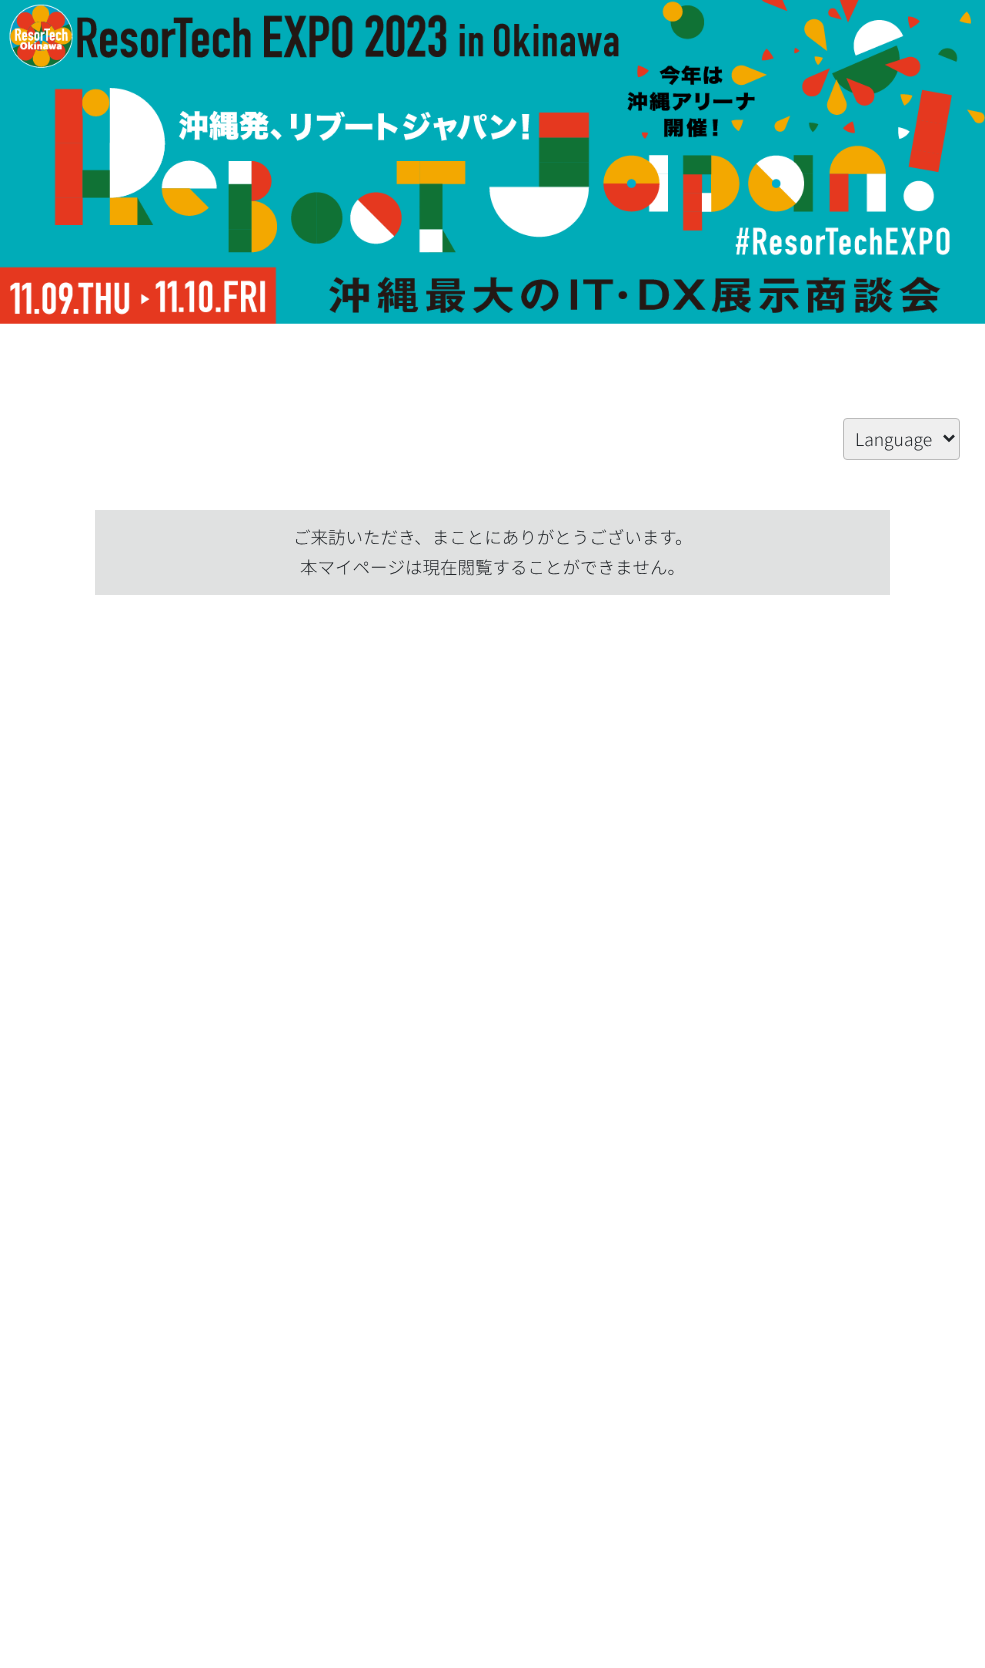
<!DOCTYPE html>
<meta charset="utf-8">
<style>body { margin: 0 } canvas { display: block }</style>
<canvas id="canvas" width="985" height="1668"></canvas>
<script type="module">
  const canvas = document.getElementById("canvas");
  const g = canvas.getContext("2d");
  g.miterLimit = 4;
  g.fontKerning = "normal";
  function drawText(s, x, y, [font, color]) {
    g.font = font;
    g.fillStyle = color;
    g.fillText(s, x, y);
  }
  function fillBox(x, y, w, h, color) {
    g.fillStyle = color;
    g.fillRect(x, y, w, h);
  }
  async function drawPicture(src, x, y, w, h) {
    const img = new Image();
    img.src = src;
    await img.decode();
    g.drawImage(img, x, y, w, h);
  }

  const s1 = ["300 17.5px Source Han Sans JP", "#212529"];

  fillBox(0, 0, 985, 1668, "#FFFFFF");
  await drawPicture("pic1.png", 0, 0, 985, 324);
  g.fillStyle = "#EFEFEF";
  g.beginPath();
  g.roundRect(843.5, 418.5, 116, 41, 3.5);
  g.fill();
  g.strokeStyle = "#BBBBBB";
  g.stroke();
  g.beginPath();
  g.moveTo(944, 435.5);
  g.lineTo(949, 440.5);
  g.lineTo(954, 435.5);
  g.strokeStyle = "#212529";
  g.lineWidth = 2.5;
  g.stroke();
  drawText("Language", 855, 446, s1);
  fillBox(95, 510, 795, 85, "#E0E1E1");
  drawText("ご来訪いただき、まことにありがとうございます。", 293, 544, s1);
  drawText("本マイページは現在閲覧することができません。", 300, 574, s1);
</script>
